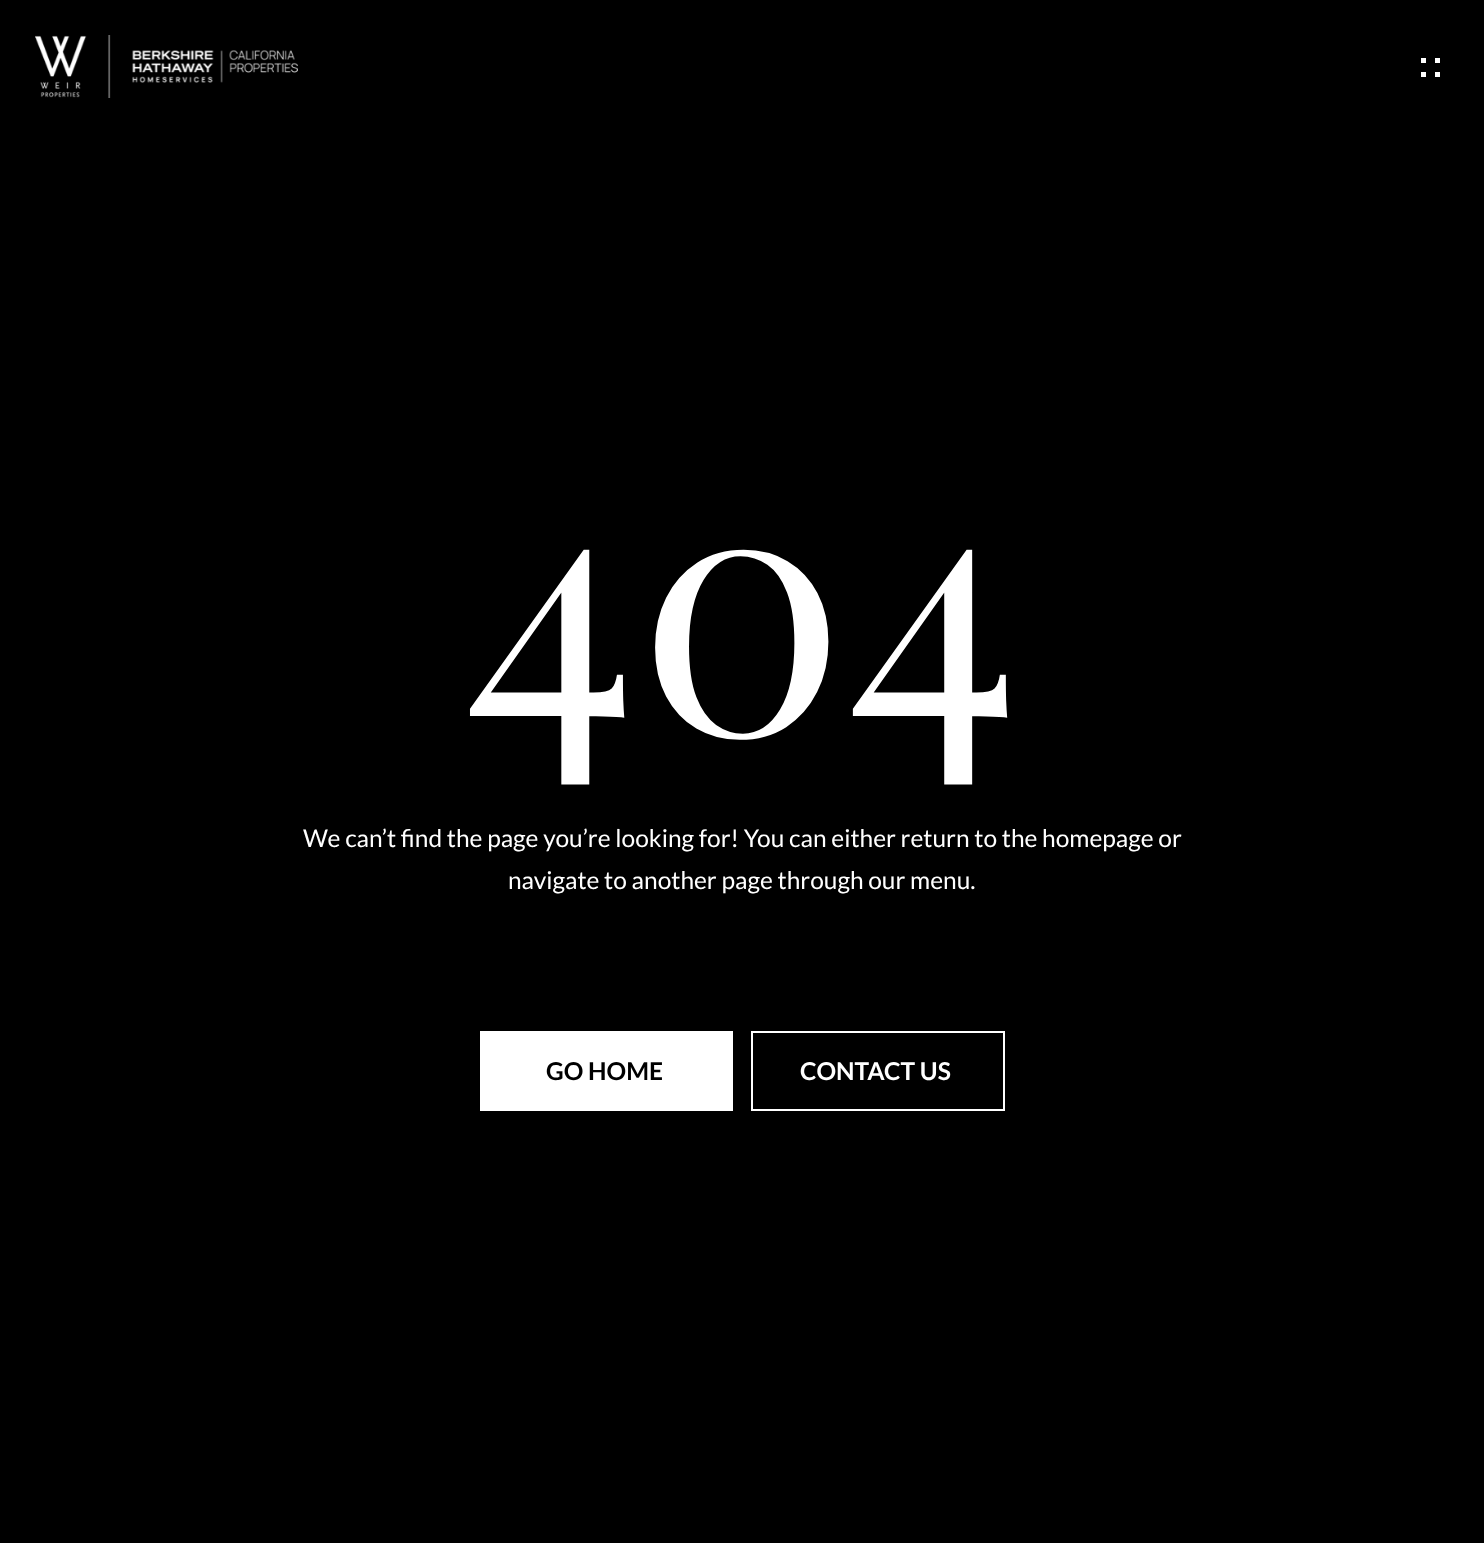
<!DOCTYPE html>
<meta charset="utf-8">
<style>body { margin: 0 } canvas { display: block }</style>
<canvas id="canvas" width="1484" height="1543"></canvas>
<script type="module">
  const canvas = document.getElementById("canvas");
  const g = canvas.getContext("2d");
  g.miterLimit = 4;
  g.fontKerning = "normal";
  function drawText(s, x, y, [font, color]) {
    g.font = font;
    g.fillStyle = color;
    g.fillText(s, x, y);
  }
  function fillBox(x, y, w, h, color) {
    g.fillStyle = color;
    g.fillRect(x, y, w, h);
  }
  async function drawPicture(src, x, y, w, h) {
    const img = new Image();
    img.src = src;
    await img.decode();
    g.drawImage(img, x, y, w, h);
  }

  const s1 = ["350px Playfair Display", "#FFFFFF"];
  const s2 = ["24.5px Lato", "#FFFFFF"];
  const s3 = ["bold 24.5px Lato", "#000000"];
  const s4 = ["bold 24.5px Lato", "#FFFFFF"];

  fillBox(0, 0, 1484, 1543, "#000000");
  await drawPicture("pic1.png", 35, 35, 263, 63);
  fillBox(1435, 58, 5, 5, "#FFFFFF");
  fillBox(1421, 58, 5, 5, "#FFFFFF");
  fillBox(1435, 72, 5, 5, "#FFFFFF");
  fillBox(1421, 72, 5, 5, "#FFFFFF");
  drawText("404", 464, 735, s1);
  drawText("We can’t find the page you’re looking for! You can either return to the homepage or", 303, 847, s2);
  drawText("navigate to another page through our menu.", 508, 889, s2);
  fillBox(480, 1031, 253, 80, "#FFFFFF");
  drawText("GO HOME", 546, 1080, s3);
  g.strokeStyle = "#FFFFFF";
  g.lineWidth = 2;
  g.strokeRect(752, 1032, 252, 78);
  drawText("CONTACT US", 800, 1080, s4);
</script>
